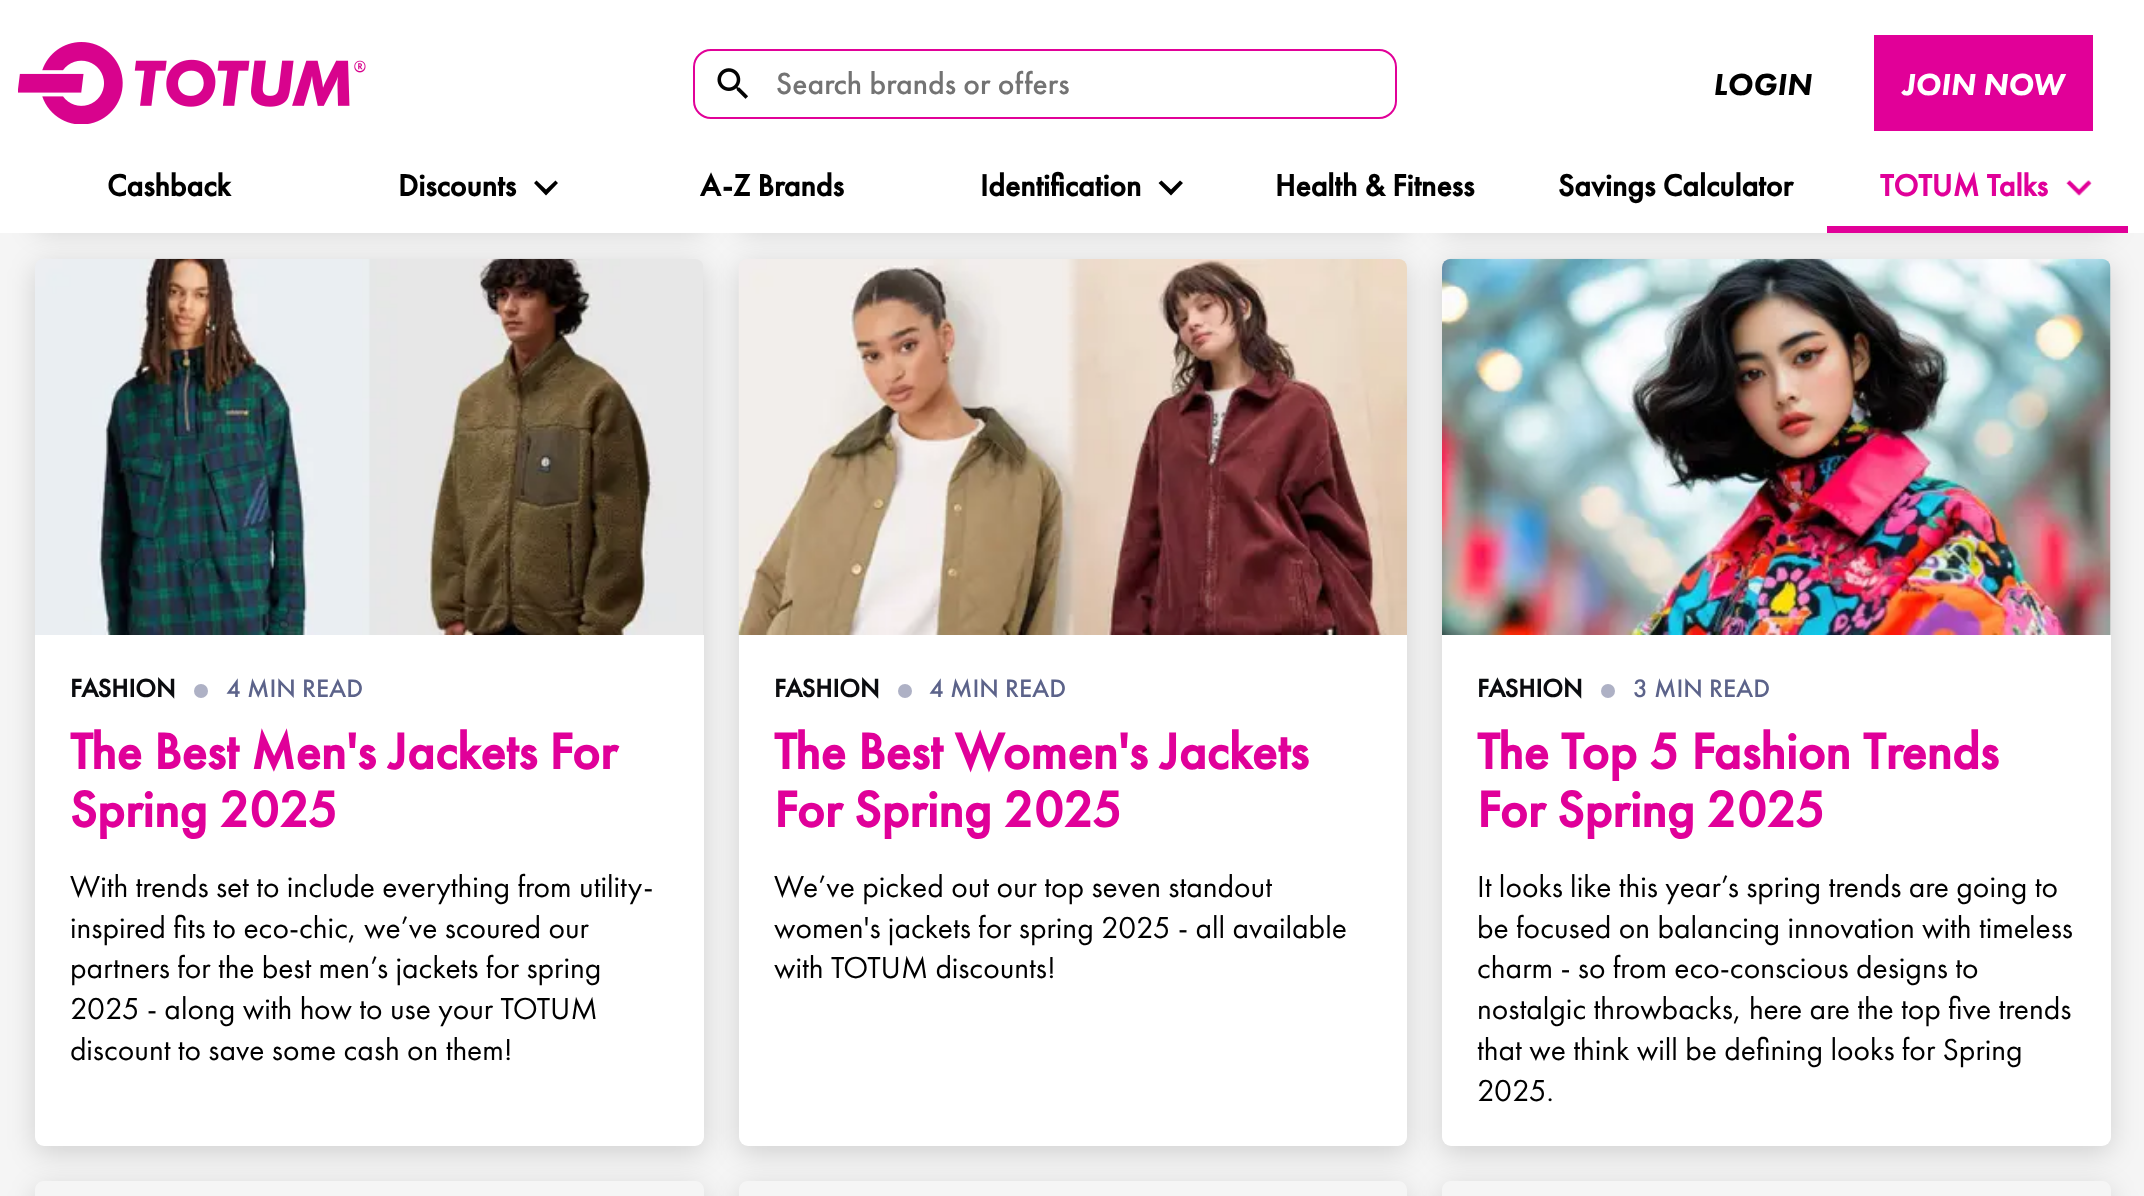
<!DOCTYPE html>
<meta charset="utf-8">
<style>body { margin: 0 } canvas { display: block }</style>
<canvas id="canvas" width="2144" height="1196"></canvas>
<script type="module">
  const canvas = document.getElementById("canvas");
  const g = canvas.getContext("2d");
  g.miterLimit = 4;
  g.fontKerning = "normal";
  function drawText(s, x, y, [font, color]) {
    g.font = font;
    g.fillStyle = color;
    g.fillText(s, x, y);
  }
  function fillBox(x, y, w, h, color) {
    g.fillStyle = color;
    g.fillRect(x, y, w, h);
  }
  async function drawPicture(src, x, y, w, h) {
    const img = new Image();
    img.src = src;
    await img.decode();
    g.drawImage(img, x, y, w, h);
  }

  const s1 = ["500 31.5px Futura PT", "#737373"];
  const s2 = ["italic 900 31.5px Futura PT", "#000000"];
  const s3 = ["italic 900 31.5px Futura PT", "#FFFFFF"];
  const s4 = ["bold 31.5px Futura PT", "#000000"];
  const s5 = ["bold 31.5px Futura PT", "#E00099"];
  const s6 = ["bold 26.25px Futura PT", "#0B0C0F"];
  const s7 = ["500 26.25px Futura PT", "#5C638A"];
  const s8 = ["bold 52.5px Futura PT", "#E00099"];
  const s9 = ["31.5px Futura PT", "#000000"];

  fillBox(0, 0, 2144, 1196, "#F5F5F5");
  g.fillStyle = "rgba(0, 0, 0, 0.15)";
  g.filter = "blur(14px)";
  g.beginPath();
  g.roundRect(35, -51, 669, 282, 9);
  g.fill();
  g.filter = "none";
  g.filter = "blur(14px)";
  g.beginPath();
  g.roundRect(739, -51, 668, 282, 9);
  g.fill();
  g.filter = "none";
  g.filter = "blur(14px)";
  g.beginPath();
  g.roundRect(1442, -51, 669, 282, 9);
  g.fill();
  g.filter = "none";
  g.filter = "blur(14px)";
  g.beginPath();
  g.roundRect(35, 266, 669, 887, 9);
  g.fill();
  g.filter = "none";
  await drawPicture("pic4.png", 35, 258, 668, 377);
  g.fillStyle = "#FFFFFF";
  g.beginPath();
  g.roundRect(35, 635, 669, 511, [0, 0, 9, 9]);
  g.fill();
  g.fillStyle = "rgba(0, 0, 0, 0.15)";
  g.filter = "blur(14px)";
  g.beginPath();
  g.roundRect(739, 266, 668, 887, 9);
  g.fill();
  g.filter = "none";
  await drawPicture("pic5.png", 738, 259, 669, 376);
  g.fillStyle = "#FFFFFF";
  g.beginPath();
  g.roundRect(739, 635, 668, 511, [0, 0, 9, 9]);
  g.fill();
  g.fillStyle = "rgba(0, 0, 0, 0.15)";
  g.filter = "blur(14px)";
  g.beginPath();
  g.roundRect(1442, 266, 669, 887, 9);
  g.fill();
  g.filter = "none";
  fillBox(0, 0, 2144, 233, "#FFFFFF");
  await drawPicture("pic1.png", 18, 42, 348, 82);
  g.beginPath();
  g.roundRect(694, 50, 702, 68, 17);
  g.strokeStyle = "#E10198";
  g.lineWidth = 2;
  g.stroke();
  await drawPicture("pic2.png", 717, 68, 31, 31);
  drawText("Search brands or offers", 776, 94, s1);
  drawText("LOGIN", 1713, 95, s2);
  fillBox(1874, 35, 219, 96, "#E10098");
  drawText("JOIN NOW", 1902, 95, s3);
  drawText("Cashback", 107, 196, s4);
  drawText("Discounts", 398, 196, s4);
  g.beginPath();
  g.moveTo(536.5, 180.5);
  g.lineTo(546, 189.5);
  g.lineTo(555.5, 180.5);
  g.lineTo(558, 183);
  g.lineTo(546, 195.5);
  g.lineTo(534, 183);
  g.closePath();
  g.fill();
  drawText("A-Z Brands", 700, 196, s4);
  drawText("Identification", 980, 196, s4);
  g.beginPath();
  g.moveTo(1161.5, 180.5);
  g.lineTo(1171, 189.5);
  g.lineTo(1180, 180.5);
  g.lineTo(1183, 183);
  g.lineTo(1171, 195.5);
  g.lineTo(1158.5, 183);
  g.closePath();
  g.fill();
  drawText("Health & Fitness", 1275, 196, s4);
  drawText("Savings Calculator", 1558, 196, s4);
  fillBox(1827, 226, 301, 7, "#E10098");
  drawText("TOTUM Talks", 1880, 196, s5);
  await drawPicture("pic3.png", 2066, 180, 26, 16);
  drawText("FASHION", 70, 697, s6);
  g.fillStyle = "#AEB1C5";
  g.beginPath();
  g.arc(201, 691, 7, 0, Math.PI * 2);
  g.fill();
  drawText("4 MIN READ", 226, 697, s7);
  drawText("The Best Men's Jackets For", 70, 769, s8);
  drawText("Spring 2025", 70, 827, s8);
  drawText("With trends set to include everything from utility-", 70, 897, s9);
  drawText("inspired fits to eco-chic, we’ve scoured our", 70, 938, s9);
  drawText("partners for the best men’s jackets for spring", 70, 978, s9);
  drawText("2025 - along with how to use your TOTUM", 70, 1019, s9);
  drawText("discount to save some cash on them!", 70, 1060, s9);
  drawText("FASHION", 774, 697, s6);
  g.fillStyle = "#AEB1C5";
  g.beginPath();
  g.arc(905, 691, 7, 0, Math.PI * 2);
  g.fill();
  drawText("4 MIN READ", 929, 697, s7);
  drawText("The Best Women's Jackets", 774, 769, s8);
  drawText("For Spring 2025", 774, 827, s8);
  drawText("We’ve picked out our top seven standout", 774, 897, s9);
  drawText("women's jackets for spring 2025 - all available", 774, 938, s9);
  drawText("with TOTUM discounts!", 774, 978, s9);
  await drawPicture("pic6.png", 1442, 258, 669, 377);
  g.fillStyle = "#FFFFFF";
  g.beginPath();
  g.roundRect(1442, 635, 669, 511, [0, 0, 9, 9]);
  g.fill();
  drawText("FASHION", 1477, 697, s6);
  g.fillStyle = "#AEB1C5";
  g.beginPath();
  g.arc(1608, 691, 7, 0, Math.PI * 2);
  g.fill();
  drawText("3 MIN READ", 1633, 697, s7);
  drawText("The Top 5 Fashion Trends", 1477, 769, s8);
  drawText("For Spring 2025", 1477, 827, s8);
  drawText("It looks like this year’s spring trends are going to", 1477, 897, s9);
  drawText("be focused on balancing innovation with timeless", 1477, 938, s9);
  drawText("charm - so from eco-conscious designs to", 1477, 978, s9);
  drawText("nostalgic throwbacks, here are the top five trends", 1477, 1019, s9);
  drawText("that we think will be defining looks for Spring", 1477, 1060, s9);
  drawText("2025.", 1477, 1101, s9);
  g.save();
  g.beginPath();
  g.moveTo(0, 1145);
  g.lineTo(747, 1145);
  g.lineTo(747, 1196);
  g.lineTo(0, 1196);
  g.closePath();
  g.moveTo(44, 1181);
  g.lineTo(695, 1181);
  g.bezierCurveTo(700, 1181, 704, 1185, 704, 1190);
  g.lineTo(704, 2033);
  g.bezierCurveTo(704, 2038, 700, 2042, 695, 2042);
  g.lineTo(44, 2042);
  g.bezierCurveTo(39, 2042, 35, 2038, 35, 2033);
  g.lineTo(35, 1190);
  g.bezierCurveTo(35, 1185, 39, 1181, 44, 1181);
  g.closePath();
  g.clip("evenodd");
  g.fillStyle = "rgba(0, 0, 0, 0.15)";
  g.filter = "blur(14px)";
  g.beginPath();
  g.roundRect(35, 1188, 669, 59, 9);
  g.fill();
  g.filter = "none";
  g.restore();
  g.save();
  g.beginPath();
  g.moveTo(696, 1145);
  g.lineTo(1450, 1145);
  g.lineTo(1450, 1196);
  g.lineTo(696, 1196);
  g.closePath();
  g.moveTo(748, 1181);
  g.lineTo(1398, 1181);
  g.bezierCurveTo(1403, 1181, 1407, 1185, 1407, 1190);
  g.lineTo(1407, 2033);
  g.bezierCurveTo(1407, 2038, 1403, 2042, 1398, 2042);
  g.lineTo(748, 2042);
  g.bezierCurveTo(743, 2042, 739, 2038, 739, 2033);
  g.lineTo(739, 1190);
  g.bezierCurveTo(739, 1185, 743, 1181, 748, 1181);
  g.closePath();
  g.clip("evenodd");
  g.fillStyle = "rgba(0, 0, 0, 0.15)";
  g.filter = "blur(14px)";
  g.beginPath();
  g.roundRect(739, 1188, 668, 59, 9);
  g.fill();
  g.filter = "none";
  g.restore();
  g.save();
  g.beginPath();
  g.moveTo(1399, 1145);
  g.lineTo(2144, 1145);
  g.lineTo(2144, 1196);
  g.lineTo(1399, 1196);
  g.closePath();
  g.moveTo(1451, 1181);
  g.lineTo(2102, 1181);
  g.bezierCurveTo(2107, 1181, 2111, 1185, 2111, 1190);
  g.lineTo(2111, 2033);
  g.bezierCurveTo(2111, 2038, 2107, 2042, 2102, 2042);
  g.lineTo(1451, 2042);
  g.bezierCurveTo(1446, 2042, 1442, 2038, 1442, 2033);
  g.lineTo(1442, 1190);
  g.bezierCurveTo(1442, 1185, 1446, 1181, 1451, 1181);
  g.closePath();
  g.clip("evenodd");
  g.fillStyle = "rgba(0, 0, 0, 0.15)";
  g.filter = "blur(14px)";
  g.beginPath();
  g.roundRect(1442, 1188, 669, 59, 9);
  g.fill();
  g.filter = "none";
  g.restore();
</script>
